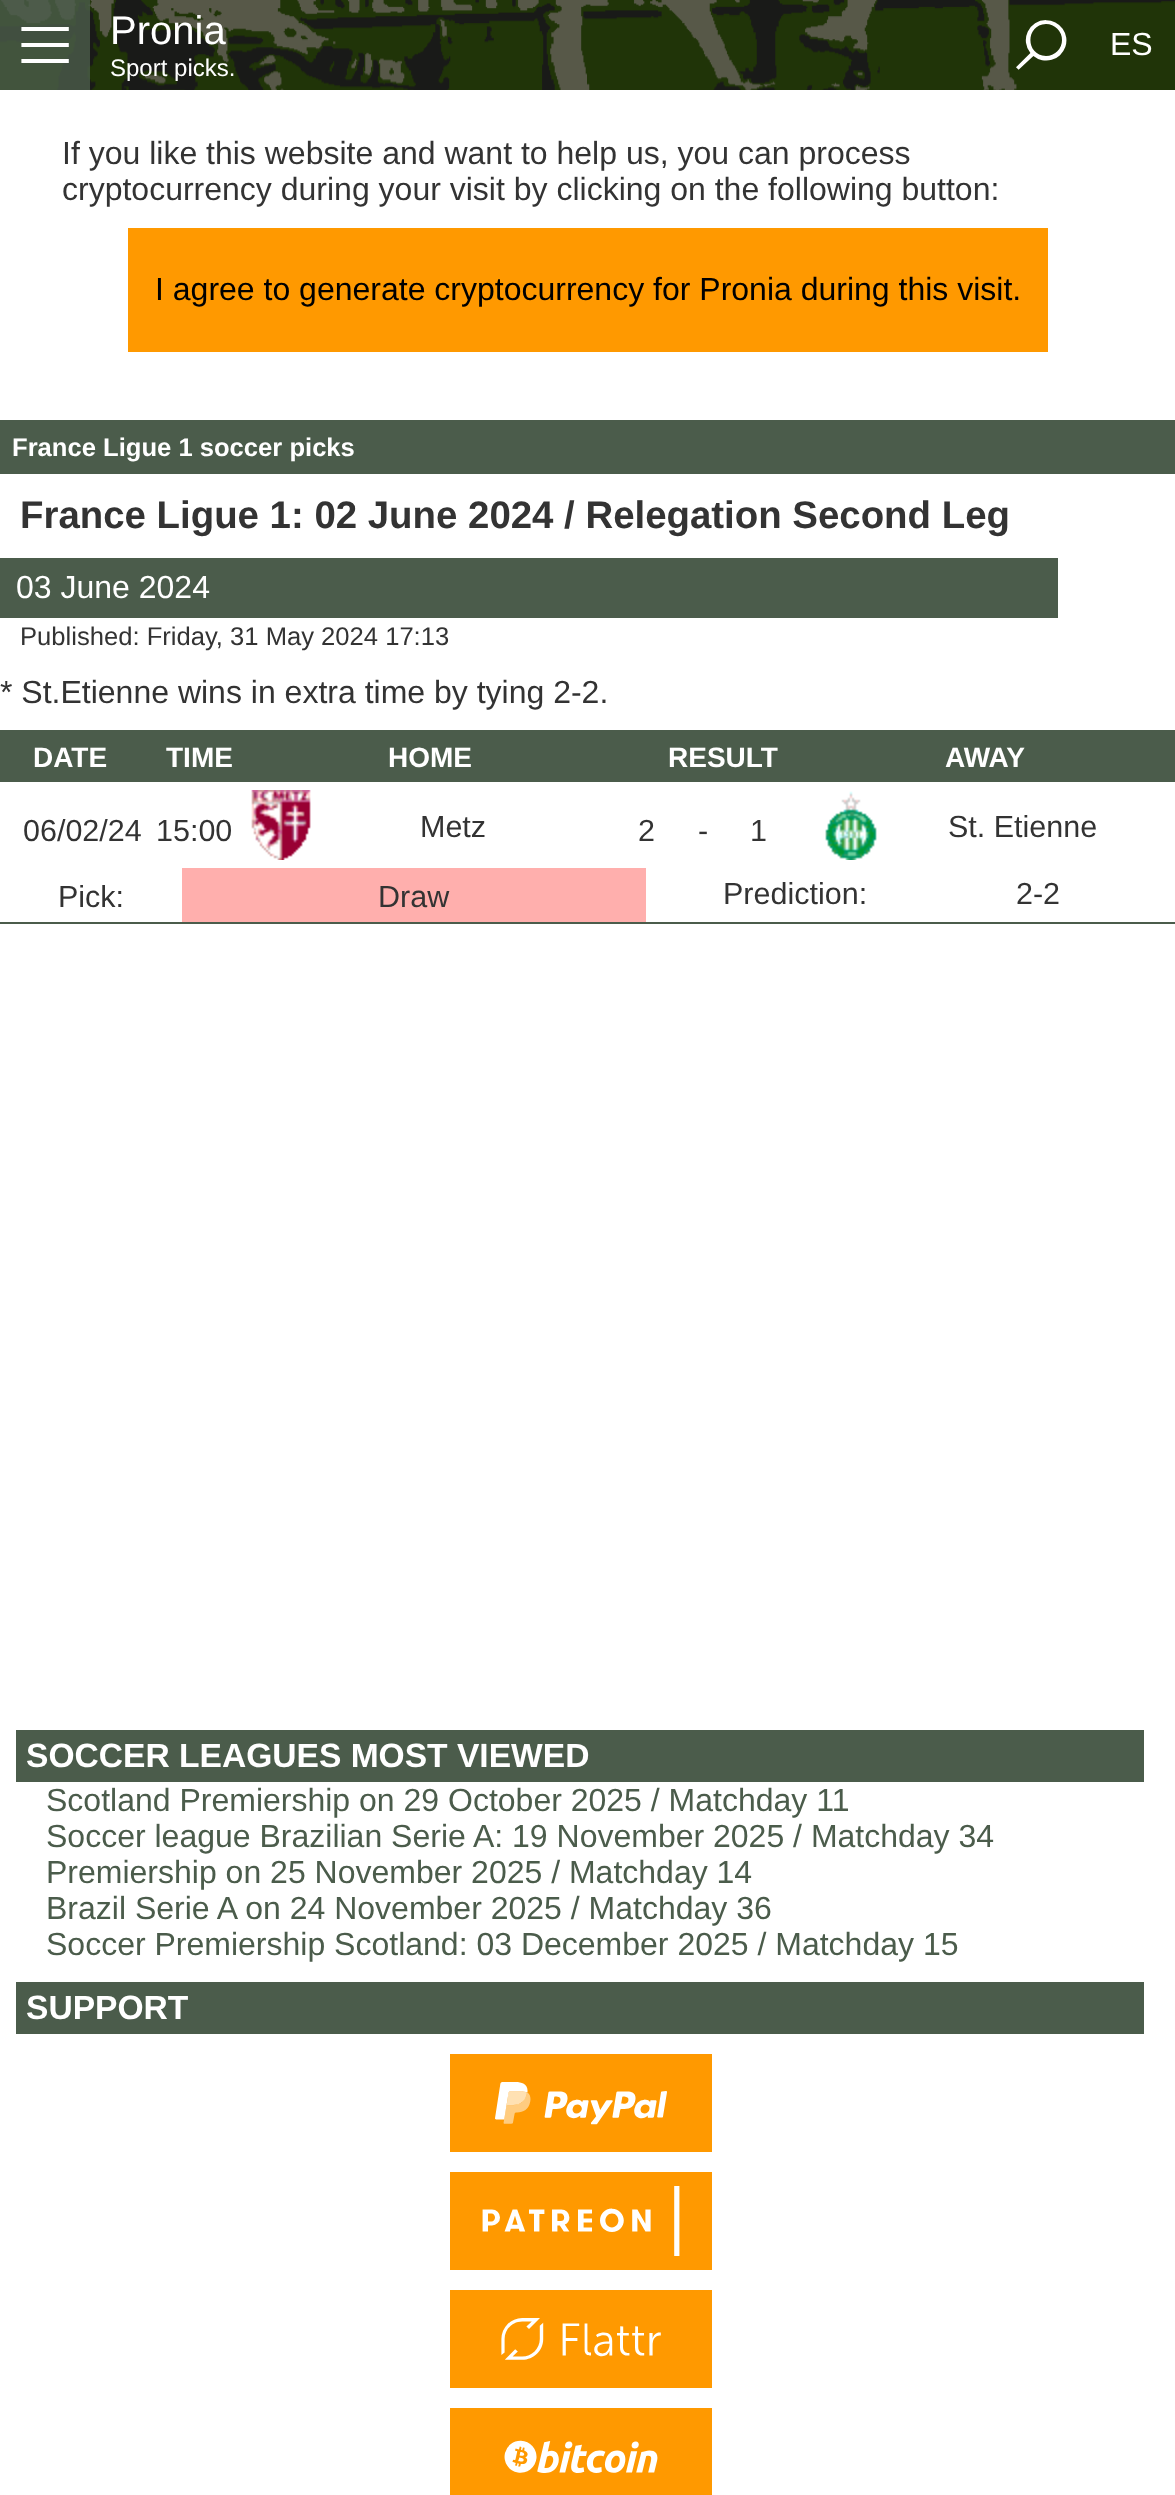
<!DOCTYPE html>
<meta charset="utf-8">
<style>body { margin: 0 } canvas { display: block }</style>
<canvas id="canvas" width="1175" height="2495"></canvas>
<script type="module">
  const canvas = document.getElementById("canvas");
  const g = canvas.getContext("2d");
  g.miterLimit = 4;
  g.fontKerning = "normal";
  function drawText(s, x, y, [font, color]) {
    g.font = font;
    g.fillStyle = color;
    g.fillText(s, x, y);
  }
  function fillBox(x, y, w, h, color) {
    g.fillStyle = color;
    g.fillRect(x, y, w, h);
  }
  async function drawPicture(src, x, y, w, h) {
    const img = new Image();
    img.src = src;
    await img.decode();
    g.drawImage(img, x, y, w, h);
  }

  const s1 = ["40px Liberation Sans", "#FFFFFF"];
  const s2 = ["24px Liberation Sans", "#FFFFFF"];
  const s3 = ["32px Liberation Sans", "#FFFFFF"];
  const s4 = ["32px Liberation Sans", "#333333"];
  const s5 = ["32px Liberation Sans", "#000000"];
  const s6 = ["bold 25.6px Liberation Sans", "#FFFFFF"];
  const s7 = ["bold 38.4px Liberation Sans", "#333333"];
  const s8 = ["25.6px Liberation Sans", "#333333"];
  const s9 = ["bold 28px Liberation Sans", "#FFFFFF"];
  const s10 = ["30.5px Liberation Sans", "#333333"];
  const s11 = ["bold 33.6px Liberation Sans", "#FFFFFF"];
  const s12 = ["32px Liberation Sans", "#4B5C4B"];

  fillBox(0, 0, 1175, 2495, "#FFFFFF");
  await drawPicture("pic1.png", 0, 0, 1175, 90);
  drawText("Pronia", 110, 44, s1);
  drawText("Sport picks.", 110, 76, s2);
  fillBox(0, 0, 90, 90, "rgba(75, 92, 75, 0.8)");
  await drawPicture("pic2.png", 21, 27, 48, 36);
  await drawPicture("pic3.png", 1016, 20, 51, 50);
  drawText("ES", 1110, 55, s3);
  drawText("If you like this website and want to help us, you can process", 62, 164, s4);
  drawText("cryptocurrency during your visit by clicking on the following button:", 62, 200, s4);
  fillBox(128, 228, 920, 124, "#FF9900");
  drawText("I agree to generate cryptocurrency for Pronia during this visit.", 155, 300, s5);
  fillBox(0, 420, 1175, 54, "#4B5C4B");
  drawText("France Ligue 1 soccer picks", 12, 456, s6);
  drawText("France Ligue 1: 02 June 2024 / Relegation Second Leg", 20, 528, s7);
  fillBox(0, 558, 1058, 60, "#4B5C4B");
  drawText("03 June 2024", 16, 598, s3);
  drawText("Published: Friday, 31 May 2024 17:13", 20, 645, s8);
  drawText("* St.Etienne wins in extra time by tying 2-2.", 0, 703, s4);
  fillBox(0, 730, 1175, 52, "#4B5C4B");
  drawText("DATE", 33, 767, s9);
  drawText("TIME", 166, 767, s9);
  drawText("HOME", 388, 767, s9);
  drawText("RESULT", 668, 767, s9);
  drawText("AWAY", 945, 767, s9);
  fillBox(0, 922, 1175, 2, "#4B5C4B");
  drawText("06/02/24", 23, 841, s10);
  drawText("15:00", 156, 841, s10);
  await drawPicture("pic4.png", 251, 790, 60, 70);
  drawText("Metz", 420, 837, s10);
  drawText("2", 638, 841, s10);
  drawText("-", 698, 841, s10);
  drawText("1", 750, 841, s10);
  await drawPicture("pic5.png", 825, 791, 52, 69);
  drawText("St. Etienne", 948, 837, s10);
  drawText("Pick:", 58, 907, s10);
  fillBox(182, 868, 464, 54, "#FFAFAD");
  drawText("Draw", 378, 907, s10);
  drawText("Prediction:", 723, 904, s10);
  drawText("2-2", 1016, 904, s10);
  fillBox(16, 1730, 1128, 52, "#4B5C4B");
  drawText("SOCCER LEAGUES MOST VIEWED", 26, 1767, s11);
  drawText("Scotland Premiership on 29 October 2025 / Matchday 11", 46, 1811, s12);
  drawText("Soccer league Brazilian Serie A: 19 November 2025 / Matchday 34", 46, 1847, s12);
  drawText("Premiership on 25 November 2025 / Matchday 14", 46, 1883, s12);
  drawText("Brazil Serie A on 24 November 2025 / Matchday 36", 46, 1919, s12);
  drawText("Soccer Premiership Scotland: 03 December 2025 / Matchday 15", 46, 1955, s12);
  fillBox(16, 1982, 1128, 52, "#4B5C4B");
  drawText("SUPPORT", 26, 2019, s11);
  fillBox(450, 2054, 262, 98, "#FF9900");
  await drawPicture("pic6.png", 495, 2082, 172, 43);
  fillBox(450, 2172, 262, 98, "#FF9900");
  await drawPicture("pic7.png", 482, 2186, 198, 70);
  fillBox(450, 2290, 262, 98, "#FF9900");
  await drawPicture("pic8.png", 501, 2318, 160, 42);
  fillBox(450, 2408, 262, 87, "#FF9900");
  await drawPicture("pic9.png", 504, 2440, 154, 33);
</script>
